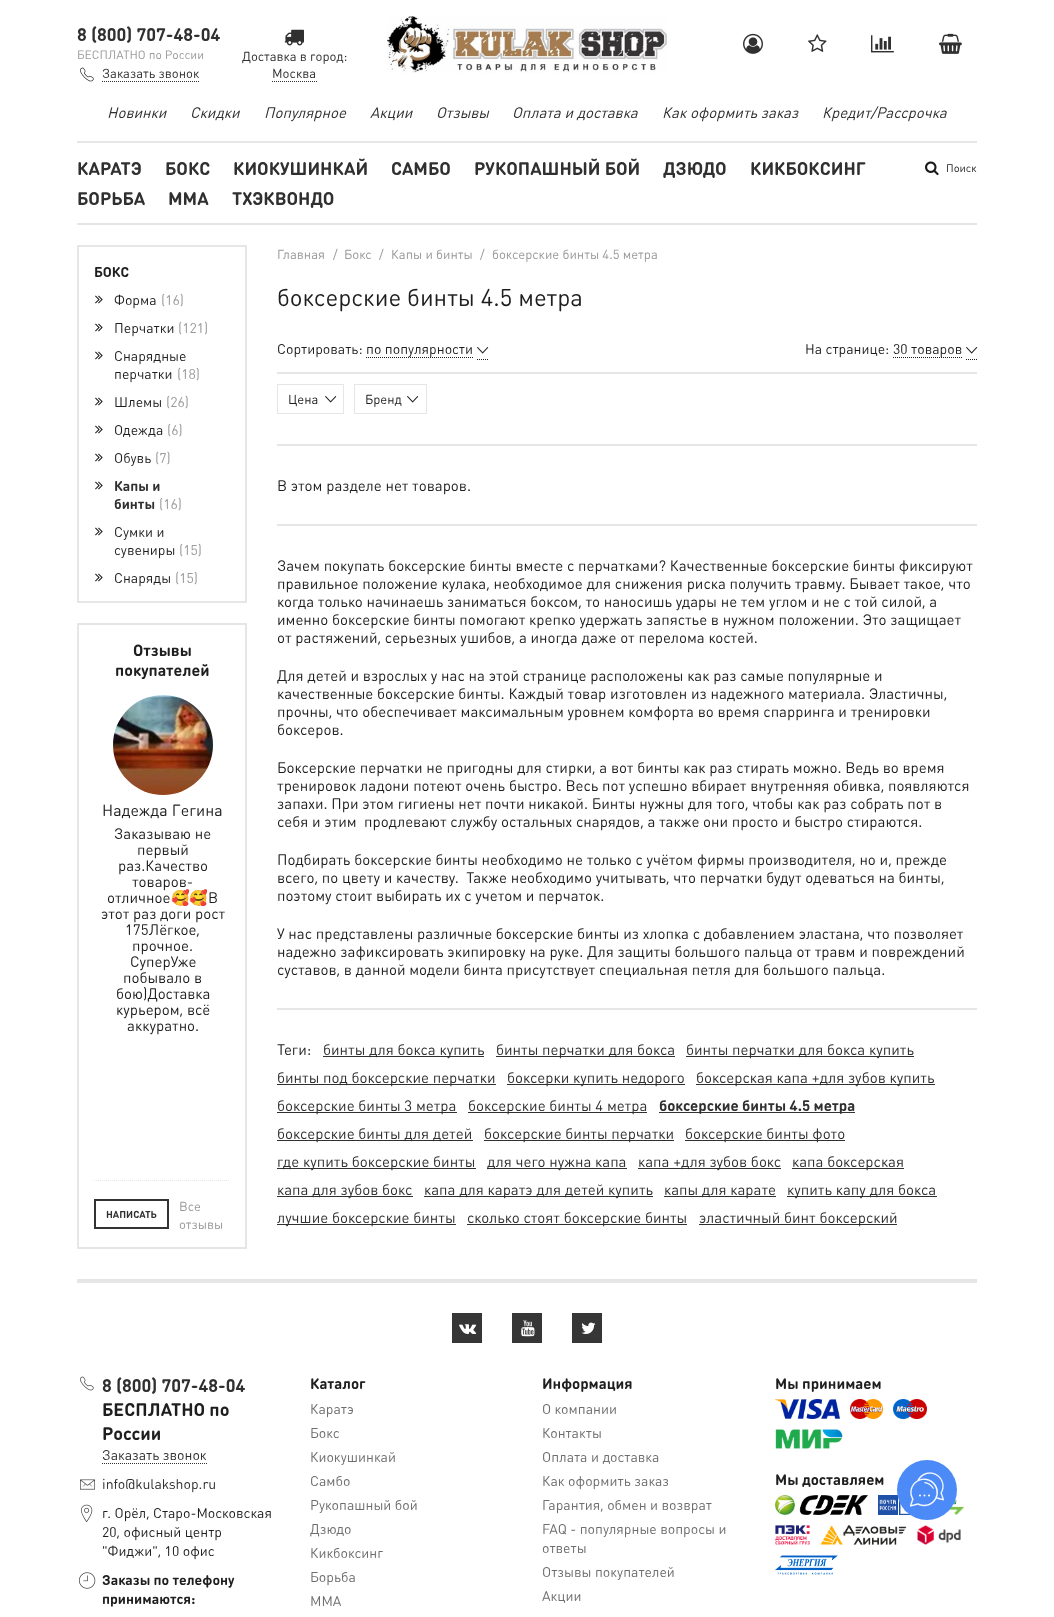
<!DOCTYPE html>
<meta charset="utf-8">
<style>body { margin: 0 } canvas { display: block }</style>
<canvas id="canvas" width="1054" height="1617"></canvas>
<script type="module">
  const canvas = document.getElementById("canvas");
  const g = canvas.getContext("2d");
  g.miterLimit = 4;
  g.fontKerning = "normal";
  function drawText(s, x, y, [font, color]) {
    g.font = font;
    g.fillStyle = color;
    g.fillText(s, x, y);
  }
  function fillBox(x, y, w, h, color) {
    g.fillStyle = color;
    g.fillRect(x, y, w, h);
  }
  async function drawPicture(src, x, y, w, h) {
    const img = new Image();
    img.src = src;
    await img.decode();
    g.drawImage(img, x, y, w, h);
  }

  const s1 = ["bold 18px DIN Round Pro", "#303030"];
  const s2 = ["12px DIN Round Pro", "#999999"];
  const s3 = ["13px DIN Round Pro", "#303030"];
  const s4 = ["italic 15px DIN Round Pro", "#303030"];
  const s5 = ["11px DIN Round Pro", "#1E1E1E"];
  const s6 = ["bold 14px DIN Round Pro", "#1E1E1E"];
  const s7 = ["14px DIN Round Pro", "#1E1E1E"];
  const s8 = ["14px DIN Round Pro", "#999999"];
  const s9 = ["bold 14px DIN Round Pro", "#303030"];
  const s10 = ["bold 16px DIN Round Pro", "#1E1E1E"];
  const s11 = ["16px DIN Round Pro", "#1E1E1E"];
  const s12 = ["15px DIN Round Pro", "#1E1E1E"];
  const s13 = ["15px Noto Color Emoji", "#1E1E1E"];
  const s14 = ["bold 10px DIN Round Pro", "#303030"];
  const s15 = ["13px DIN Round Pro", "#999999"];
  const s16 = ["24px DIN Round Pro", "#1E1E1E"];
  const s17 = ["13px DIN Round Pro", "#1E1E1E"];
  const s18 = ["15px DIN Round Pro", "#303030"];
  const s19 = ["bold 15px DIN Round Pro", "#303030"];
  const s20 = ["bold 18px DIN Round Pro", "#1E1E1E"];
  const s21 = ["14px DIN Round Pro", "#303030"];
  const s22 = ["bold 15px DIN Round Pro", "#1E1E1E"];
  const s23 = ["14px DIN Round Pro", "#6E6E6E"];

  fillBox(0, 0, 1054, 1617, "#FFFFFF");
  drawText("8 (800) 707-48-04", 77, 41, s1);
  drawText("БЕСПЛАТНО по России", 77, 59, s2);
  await drawPicture("pic1.png", 80, 67, 14, 15);
  drawText("Заказать звонок", 102, 78, s3);
  g.beginPath();
  g.moveTo(102, 81.5);
  g.lineTo(199, 81.5);
  g.strokeStyle = "#303030";
  g.setLineDash([1, 1]);
  g.stroke();
  await drawPicture("pic2.png", 284, 29, 20, 17);
  drawText("Доставка в город:", 242, 61, s3);
  g.beginPath();
  g.moveTo(272, 81.5);
  g.lineTo(317, 81.5);
  g.stroke();
  drawText("Москва", 272, 78, s3);
  await drawPicture("pic3.png", 387, 16, 280, 57);
  await drawPicture("pic4.png", 743, 33, 20, 21);
  await drawPicture("pic5.png", 808, 34, 19, 18);
  await drawPicture("pic6.png", 871, 35, 23, 18);
  await drawPicture("pic7.png", 939, 33, 23, 21);
  drawText("Новинки", 107, 118, s4);
  drawText("Скидки", 190, 118, s4);
  drawText("Популярное", 264, 118, s4);
  drawText("Акции", 370, 118, s4);
  drawText("Отзывы", 436, 118, s4);
  drawText("Оплата и доставка", 512, 118, s4);
  drawText("Как оформить заказ", 662, 118, s4);
  drawText("Кредит/Рассрочка", 822, 118, s4);
  fillBox(77, 141, 900, 2, "#E6E6E6");
  fillBox(77, 223, 900, 2, "#E6E6E6");
  drawText("КАРАТЭ", 77, 175, s1);
  drawText("БОКС", 165, 175, s1);
  drawText("КИОКУШИНКАЙ", 233, 175, s1);
  drawText("САМБО", 391, 175, s1);
  drawText("РУКОПАШНЫЙ БОЙ", 474, 175, s1);
  drawText("ДЗЮДО", 663, 175, s1);
  drawText("КИКБОКСИНГ", 750, 175, s1);
  drawText("БОРЬБА", 77, 205, s1);
  drawText("MMA", 168, 205, s1);
  drawText("ТХЭКВОНДО", 232, 205, s1);
  await drawPicture("pic8.png", 925, 161, 14, 15);
  drawText("Поиск", 946, 172, s5);
  g.strokeStyle = "#E6E6E6";
  g.lineWidth = 2;
  g.setLineDash([]);
  g.strokeRect(78, 246, 168, 356);
  drawText("БОКС", 94, 277, s6);
  await drawPicture("pic9.png", 95, 295, 8, 9);
  drawText("Форма", 114, 305, s7);
  drawText("(16)", 161, 305, s8);
  await drawPicture("pic9.png", 95, 323, 8, 9);
  drawText("Перчатки", 114, 333, s7);
  drawText("(121)", 178, 333, s8);
  await drawPicture("pic9.png", 95, 351, 8, 9);
  drawText("Снарядные", 114, 361, s7);
  drawText("перчатки", 114, 379, s7);
  drawText("(18)", 177, 379, s8);
  await drawPicture("pic9.png", 95, 397, 8, 9);
  drawText("Шлемы", 114, 407, s7);
  drawText("(26)", 166, 407, s8);
  await drawPicture("pic9.png", 95, 425, 8, 9);
  drawText("Одежда", 114, 435, s7);
  drawText("(6)", 167, 435, s8);
  await drawPicture("pic9.png", 95, 453, 8, 9);
  drawText("Обувь", 114, 463, s7);
  drawText("(7)", 155, 463, s8);
  await drawPicture("pic9.png", 95, 481, 8, 9);
  drawText("Капы и", 114, 491, s9);
  drawText("бинты", 114, 509, s9);
  drawText("(16)", 159, 509, s8);
  await drawPicture("pic9.png", 95, 527, 8, 9);
  drawText("Сумки и", 114, 537, s7);
  drawText("сувениры", 114, 555, s7);
  drawText("(15)", 179, 555, s8);
  await drawPicture("pic9.png", 95, 573, 8, 9);
  drawText("Снаряды", 114, 583, s7);
  drawText("(15)", 175, 583, s8);
  g.strokeRect(78, 624, 168, 624);
  drawText("Отзывы", 133, 656, s10);
  drawText("покупателей", 115, 676, s10);
  await drawPicture("pic10.png", 113, 695, 100, 100);
  drawText("Надежда Гегина", 102, 816, s11);
  drawText("Заказываю не", 114, 839, s12);
  drawText("первый", 137, 855, s12);
  drawText("раз.Качество", 118, 871, s12);
  drawText("товаров-", 132, 887, s12);
  drawText("отличное", 107, 903, s12);
  drawText("🥰🥰", 171, 903, s13);
  drawText("В", 208, 903, s12);
  drawText("этот раз доги рост", 101, 919, s12);
  drawText("175Лёгкое,", 125, 935, s12);
  drawText("прочное.", 132, 951, s12);
  drawText("СуперУже", 130, 967, s12);
  drawText("побывало в", 123, 983, s12);
  drawText("бою)Доставка", 116, 999, s12);
  drawText("курьером, всё", 116, 1015, s12);
  drawText("аккуратно.", 127, 1031, s12);
  g.beginPath();
  g.moveTo(94, 1180.5);
  g.lineTo(230, 1180.5);
  g.lineWidth = 1;
  g.setLineDash([1, 1]);
  g.stroke();
  g.strokeStyle = "#333333";
  g.lineWidth = 2;
  g.setLineDash([]);
  g.strokeRect(95, 1200, 73, 28);
  drawText("НАПИСАТЬ", 106, 1218, s14);
  drawText("Все", 179, 1211, s15);
  drawText("отзывы", 179, 1229, s15);
  drawText("Главная", 277, 259, s15);
  drawText("/", 333, 259, s15);
  drawText("Бокс", 344, 259, s15);
  drawText("/", 379, 259, s15);
  drawText("Капы и бинты", 391, 259, s15);
  drawText("/", 480, 259, s15);
  drawText("боксерские бинты 4.5 метра", 492, 259, s15);
  drawText("боксерские бинты 4.5 метра", 277, 306, s16);
  drawText("Сортировать:", 277, 354, s7);
  g.beginPath();
  g.moveTo(366, 357.5);
  g.lineTo(474, 357.5);
  g.strokeStyle = "#1A1A1A";
  g.lineWidth = 1;
  g.setLineDash([1, 1]);
  g.stroke();
  g.beginPath();
  g.moveTo(477, 359.5);
  g.lineTo(489, 359.5);
  g.stroke();
  drawText("по популярности", 366, 354, s7);
  await drawPicture("pic11.png", 477, 347, 12, 7);
  drawText("На странице:", 805, 354, s7);
  g.beginPath();
  g.moveTo(893, 357.5);
  g.lineTo(962, 357.5);
  g.stroke();
  g.beginPath();
  g.moveTo(966, 359.5);
  g.lineTo(977, 359.5);
  g.stroke();
  drawText("30 товаров", 893, 354, s7);
  await drawPicture("pic11.png", 966, 347, 12, 7);
  fillBox(277, 372, 700, 2, "#E6E6E6");
  g.strokeStyle = "#E6E6E6";
  g.setLineDash([]);
  g.strokeRect(277.5, 384.5, 66, 29);
  drawText("Цена", 288, 404, s17);
  await drawPicture("pic11.png", 325, 396, 12, 7);
  g.strokeRect(354.5, 384.5, 72, 29);
  drawText("Бренд", 365, 404, s17);
  await drawPicture("pic11.png", 407, 396, 12, 7);
  fillBox(277, 444, 700, 2, "#E6E6E6");
  drawText("В этом разделе нет товаров.", 277, 491, s12);
  fillBox(277, 524, 700, 2, "#E6E6E6");
  drawText("Зачем покупать боксерские бинты вместе с перчатками? Качественные боксерские бинты фиксируют", 277, 571, s12);
  drawText("правильное положение кулака, необходимое для снижения риска получить травму. Бывает такое, что", 277, 589, s12);
  drawText("когда только начинаешь заниматься боксом, то наносишь удары не тем углом и не с той силой, а", 277, 607, s12);
  drawText("именно боксерские бинты помогают крепко удержать запястье в нужном положении. Это защищает", 277, 625, s12);
  drawText("от растяжений, серьезных ушибов, а иногда даже от перелома костей.", 277, 643, s12);
  drawText("Для детей и взрослых у нас на этой странице расположены как раз самые популярные и", 277, 681, s12);
  drawText("качественные боксерские бинты. Каждый товар изготовлен из надежного материала. Эластичны,", 277, 699, s12);
  drawText("прочны, что обеспечивает максимальным уровнем комфорта во время спарринга и тренировки", 277, 717, s12);
  drawText("боксеров.", 277, 735, s12);
  drawText("Боксерские перчатки не пригодны для стирки, а вот бинты как раз стирать можно. Ведь во время", 277, 773, s12);
  drawText("тренировок ладони потеют очень быстро. Весь пот успешно вбирает внутренняя обивка, появляются", 277, 791, s12);
  drawText("запахи. При этом гигиены нет почти никакой. Бинты нужны для того, чтобы как раз собрать пот в", 277, 809, s12);
  drawText("себя и этим  продлевают службу остальных снарядов, а также они просто и быстро стираются.", 277, 827, s12);
  drawText("Подбирать боксерские бинты необходимо не только с учётом фирмы производителя, но и, прежде", 277, 865, s12);
  drawText("всего, по цвету и качеству.  Также необходимо учитывать, что перчатки будут одеваться на бинты,", 277, 883, s12);
  drawText("поэтому стоит выбирать их с учетом и перчаток.", 277, 901, s12);
  drawText("У нас представлены различные боксерские бинты из хлопка с добавлением эластана, что позволяет", 277, 939, s12);
  drawText("надежно зафиксировать экипировку на руке. Для защиты большого пальца от травм и повреждений", 277, 957, s12);
  drawText("суставов, в данной модели бинта присутствует специальная петля для большого пальца.", 277, 975, s12);
  fillBox(277, 1008, 700, 2, "#E6E6E6");
  drawText("Теги:", 277, 1055, s12);
  fillBox(323, 1056, 161, 1, "#303030");
  drawText("бинты для бокса купить", 323, 1055, s18);
  fillBox(496, 1056, 179, 1, "#303030");
  drawText("бинты перчатки для бокса", 496, 1055, s18);
  fillBox(686, 1056, 228, 1, "#303030");
  drawText("бинты перчатки для бокса купить", 686, 1055, s18);
  fillBox(277, 1084, 219, 1, "#303030");
  drawText("бинты под боксерские перчатки", 277, 1083, s18);
  fillBox(507, 1084, 178, 1, "#303030");
  drawText("боксерки купить недорого", 507, 1083, s18);
  fillBox(696, 1084, 239, 1, "#303030");
  drawText("боксерская капа +для зубов купить", 696, 1083, s18);
  fillBox(277, 1112, 180, 1, "#303030");
  drawText("боксерские бинты 3 метра", 277, 1111, s18);
  fillBox(468, 1112, 179, 1, "#303030");
  drawText("боксерские бинты 4 метра", 468, 1111, s18);
  fillBox(659, 1112, 196, 1, "#333333");
  drawText("боксерские бинты 4.5 метра", 659, 1111, s19);
  fillBox(277, 1140, 196, 1, "#303030");
  drawText("боксерские бинты для детей", 277, 1139, s18);
  fillBox(484, 1140, 190, 1, "#303030");
  drawText("боксерские бинты перчатки", 484, 1139, s18);
  fillBox(685, 1140, 160, 1, "#303030");
  drawText("боксерские бинты фото", 685, 1139, s18);
  fillBox(277, 1168, 199, 1, "#303030");
  drawText("где купить боксерские бинты", 277, 1167, s18);
  fillBox(487, 1168, 140, 1, "#303030");
  drawText("для чего нужна капа", 487, 1167, s18);
  fillBox(638, 1168, 143, 1, "#303030");
  drawText("капа +для зубов бокс", 638, 1167, s18);
  fillBox(792, 1168, 112, 1, "#303030");
  drawText("капа боксерская", 792, 1167, s18);
  fillBox(277, 1196, 136, 1, "#303030");
  drawText("капа для зубов бокс", 277, 1195, s18);
  fillBox(424, 1196, 229, 1, "#303030");
  drawText("капа для каратэ для детей купить", 424, 1195, s18);
  fillBox(664, 1196, 112, 1, "#303030");
  drawText("капы для карате", 664, 1195, s18);
  fillBox(787, 1196, 150, 1, "#303030");
  drawText("купить капу для бокса", 787, 1195, s18);
  fillBox(277, 1224, 179, 1, "#303030");
  drawText("лучшие боксерские бинты", 277, 1223, s18);
  fillBox(467, 1224, 220, 1, "#303030");
  drawText("сколько стоят боксерские бинты", 467, 1223, s18);
  fillBox(699, 1224, 198, 1, "#303030");
  drawText("эластичный бинт боксерский", 699, 1223, s18);
  fillBox(77, 1279, 900, 4, "#E6E6E6");
  fillBox(452, 1313, 30, 30, "#363636");
  await drawPicture("pic12.png", 459, 1324, 18, 10);
  fillBox(512, 1313, 30, 30, "#363636");
  await drawPicture("pic13.png", 521, 1320, 14, 17);
  fillBox(572, 1313, 30, 30, "#363636");
  await drawPicture("pic14.png", 581, 1322, 15, 12);
  await drawPicture("pic15.png", 80, 1376, 14, 15);
  drawText("8 (800) 707-48-04", 102, 1392, s1);
  drawText("БЕСПЛАТНО по", 102, 1416, s20);
  drawText("России", 102, 1440, s20);
  drawText("Заказать звонок", 102, 1460, s21);
  g.beginPath();
  g.moveTo(102, 1463.5);
  g.lineTo(207, 1463.5);
  g.strokeStyle = "#303030";
  g.setLineDash([1, 1]);
  g.stroke();
  await drawPicture("pic16.png", 80, 1479, 15, 11);
  drawText("info@kulakshop.ru", 102, 1489, s21);
  await drawPicture("pic17.png", 81, 1504, 12, 19);
  drawText("г. Орёл, Старо-Московская", 102, 1518, s7);
  drawText("20, офисный центр", 102, 1537, s7);
  drawText("\"Фиджи\", 10 офис", 102, 1556, s7);
  await drawPicture("pic18.png", 79, 1572, 17, 17);
  drawText("Заказы по телефону", 102, 1585, s6);
  drawText("принимаются:", 102, 1604, s6);
  drawText("Каталог", 310, 1389, s22);
  drawText("Каратэ", 310, 1414, s23);
  drawText("Бокс", 310, 1438, s23);
  drawText("Киокушинкай", 310, 1462, s23);
  drawText("Самбо", 310, 1486, s23);
  drawText("Рукопашный бой", 310, 1510, s23);
  drawText("Дзюдо", 310, 1534, s23);
  drawText("Кикбоксинг", 310, 1558, s23);
  drawText("Борьба", 310, 1582, s23);
  drawText("MMA", 310, 1606, s23);
  drawText("Информация", 542, 1389, s22);
  drawText("О компании", 542, 1414, s23);
  drawText("Контакты", 542, 1438, s23);
  drawText("Оплата и доставка", 542, 1462, s23);
  drawText("Как оформить заказ", 542, 1486, s23);
  drawText("Гарантия, обмен и возврат", 542, 1510, s23);
  drawText("FAQ - популярные вопросы и", 542, 1534, s23);
  drawText("ответы", 542, 1553, s23);
  drawText("Отзывы покупателей", 542, 1577, s23);
  drawText("Акции", 542, 1601, s23);
  drawText("Мы принимаем", 775, 1389, s22);
  await drawPicture("pic19.png", 775, 1399, 65, 20);
  await drawPicture("pic20.png", 850, 1399, 33, 20);
  await drawPicture("pic21.png", 893, 1399, 34, 20);
  await drawPicture("pic22.png", 775, 1429, 68, 20);
  drawText("Мы доставляем", 775, 1485, s22);
  await drawPicture("pic23.png", 775, 1495, 93, 20);
  await drawPicture("pic24.png", 878, 1495, 33, 20);
  await drawPicture("pic25.png", 948, 1499, 16, 16);
  await drawPicture("pic26.png", 775, 1525, 35, 20);
  await drawPicture("pic27.png", 820, 1525, 87, 20);
  await drawPicture("pic28.png", 917, 1525, 44, 20);
  await drawPicture("pic29.png", 775, 1555, 63, 20);
  g.fillStyle = "#4C8BF7";
  g.beginPath();
  g.arc(927, 1490, 30, 0, Math.PI * 2);
  g.fill();
  await drawPicture("pic30.png", 909, 1472, 35, 35);
</script>
